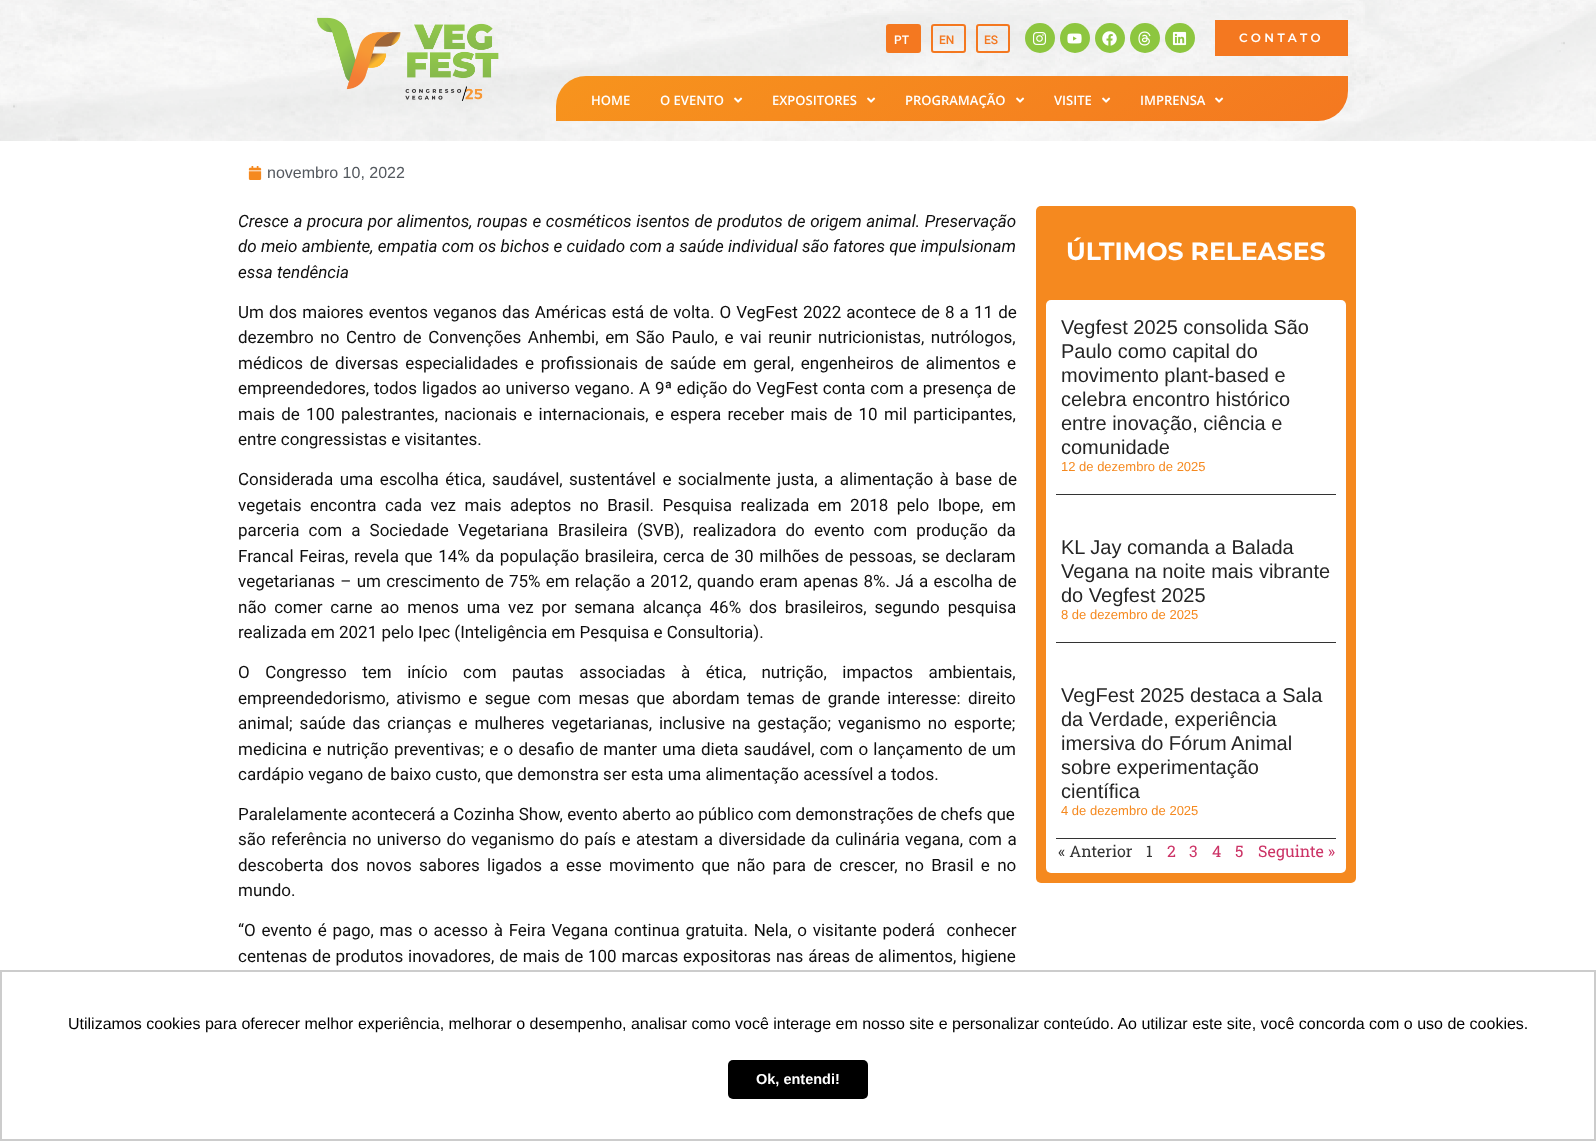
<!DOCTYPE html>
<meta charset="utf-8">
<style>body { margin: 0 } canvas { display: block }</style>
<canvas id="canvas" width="1596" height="1141"></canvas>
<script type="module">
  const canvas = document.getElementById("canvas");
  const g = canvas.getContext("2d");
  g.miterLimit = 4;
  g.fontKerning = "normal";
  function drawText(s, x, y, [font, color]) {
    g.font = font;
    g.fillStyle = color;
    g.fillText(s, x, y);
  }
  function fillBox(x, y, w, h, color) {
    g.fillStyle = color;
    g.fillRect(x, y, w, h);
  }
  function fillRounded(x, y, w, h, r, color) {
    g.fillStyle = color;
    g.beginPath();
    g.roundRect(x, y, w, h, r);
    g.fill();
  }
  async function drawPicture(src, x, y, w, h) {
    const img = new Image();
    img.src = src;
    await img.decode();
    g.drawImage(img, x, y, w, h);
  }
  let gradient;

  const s1 = ["500 12px Roboto", "#FFFFFF"];
  const s2 = ["500 12px Roboto", "#F47820"];
  const s3 = ["600 12px Montserrat", "#FFFFFF"];
  const s4 = ["600 13px Open Sans", "#FFFFFF"];
  const s5 = ["16px Liberation Sans", "#54595F"];
  const s6 = ["italic 17px Roboto", "#0F0F0F"];
  const s7 = ["17px Roboto", "#0F0F0F"];
  const s8 = ["bold 25px Montserrat", "#FFFFFF"];
  const s9 = ["20px Liberation Sans", "#252525"];
  const s10 = ["13px Liberation Sans", "#F5891F"];
  const s11 = ["16px Roboto Slab", "#333333"];
  const s12 = ["16px Roboto Slab", "#CC3366"];
  const s13 = ["16px Liberation Sans", "#000000"];
  const s14 = ["bold 14.5px Liberation Sans", "#FFFFFF"];

  fillBox(0, 0, 1596, 1141, "#FFFFFF");
  await drawPicture("pic1.png", 0, 0, 1596, 141);
  await drawPicture("pic2.png", 317, 17, 182, 84);
  g.fillStyle = "#F47820";
  g.beginPath();
  g.roundRect(887, 25, 33, 27, 2);
  g.fill();
  g.strokeStyle = "#F47820";
  g.lineWidth = 2;
  g.stroke();
  drawText("PT", 894, 44, s1);
  g.beginPath();
  g.roundRect(932, 25, 33, 27, 2);
  g.stroke();
  drawText("EN", 939, 44, s2);
  g.beginPath();
  g.roundRect(977, 25, 32, 27, 2);
  g.stroke();
  drawText("ES", 984, 44, s2);
  g.fillStyle = "#8DC63F";
  g.beginPath();
  g.arc(1040, 38, 15, 0, Math.PI * 2);
  g.fill();
  await drawPicture("pic3.png", 1033, 32, 14, 13);
  g.beginPath();
  g.arc(1075, 38, 15, 0, Math.PI * 2);
  g.fill();
  await drawPicture("pic4.png", 1067, 33, 15, 11);
  g.beginPath();
  g.arc(1110, 38, 15, 0, Math.PI * 2);
  g.fill();
  await drawPicture("pic5.png", 1102, 31, 15, 15);
  g.beginPath();
  g.arc(1145, 38, 15, 0, Math.PI * 2);
  g.fill();
  await drawPicture("pic6.png", 1138, 31, 13, 15);
  g.beginPath();
  g.arc(1180, 38, 15, 0, Math.PI * 2);
  g.fill();
  await drawPicture("pic7.png", 1172, 31, 15, 15);
  fillBox(1215, 20, 133, 36, "#F47820");
  g.letterSpacing = "3.5px";
  drawText("CONTATO", 1239, 42, s3);
  gradient = g.createLinearGradient(818, -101, 1086, 298);
  gradient.addColorStop(0, "#F7941D");
  gradient.addColorStop(1, "#F47820");
  g.fillStyle = gradient;
  g.beginPath();
  g.roundRect(556, 76, 792, 45, [30, 0, 30, 0]);
  g.fill();
  g.letterSpacing = "0px";
  drawText("HOME", 591, 105, s4);
  drawText("O EVENTO", 660, 105, s4);
  await drawPicture("pic8.png", 734, 97, 9, 6);
  drawText("EXPOSITORES", 772, 105, s4);
  await drawPicture("pic9.png", 867, 97, 9, 6);
  drawText("PROGRAMAÇÃO", 905, 105, s4);
  await drawPicture("pic10.png", 1016, 97, 9, 6);
  drawText("VISITE", 1054, 105, s4);
  await drawPicture("pic11.png", 1102, 97, 9, 6);
  drawText("IMPRENSA", 1140, 105, s4);
  await drawPicture("pic12.png", 1215, 97, 9, 6);
  await drawPicture("pic13.png", 248, 166, 14, 14);
  drawText("novembro 10, 2022", 267, 178, s5);
  g.wordSpacing = "0.5px";
  drawText("Cresce a procura por alimentos, roupas e cosméticos isentos de produtos de origem animal. Preservação", 238, 227, s6);
  g.wordSpacing = "0px";
  drawText("do meio ambiente, empatia com os bichos e cuidado com a saúde individual são fatores que impulsionam", 238, 252, s6);
  drawText("essa tendência", 238, 278, s6);
  g.wordSpacing = "0.9px";
  drawText("Um dos maiores eventos veganos das Américas está de volta. O VegFest 2022 acontece de 8 a 11 de", 238, 318, s7);
  g.wordSpacing = "2.4px";
  drawText("dezembro no Centro de Convenções Anhembi, em São Paulo, e vai reunir nutricionistas, nutrólogos,", 238, 343, s7);
  g.wordSpacing = "2.5px";
  drawText("médicos de diversas especialidades e profissionais de saúde em geral, engenheiros de alimentos e", 238, 369, s7);
  g.wordSpacing = "0.6px";
  drawText("empreendedores, todos ligados ao universo vegano. A 9ª edição do VegFest conta com a presença de", 238, 394, s7);
  g.wordSpacing = "2px";
  drawText("mais de 100 palestrantes, nacionais e internacionais, e espera receber mais de 10 mil participantes,", 238, 420, s7);
  g.wordSpacing = "0px";
  drawText("entre congressistas e visitantes.", 238, 445, s7);
  g.wordSpacing = "2.25px";
  drawText("Considerada uma escolha ética, saudável, sustentável e socialmente justa, a alimentação à base de", 238, 485, s7);
  g.wordSpacing = "4.25px";
  drawText("vegetais encontra cada vez mais adeptos no Brasil. Pesquisa realizada em 2018 pelo Ibope, em", 238, 511, s7);
  g.wordSpacing = "4.9px";
  drawText("parceria com a Sociedade Vegetariana Brasileira (SVB), realizadora do evento com produção da", 238, 536, s7);
  g.wordSpacing = "1.4px";
  drawText("Francal Feiras, revela que 14% da população brasileira, cerca de 30 milhões de pessoas, se declaram", 238, 562, s7);
  g.wordSpacing = "1px";
  drawText("vegetarianas – um crescimento de 75% em relação a 2012, quando eram apenas 8%. Já a escolha de", 238, 587, s7);
  g.wordSpacing = "3.6px";
  drawText("não comer carne ao menos uma vez por semana alcança 46% dos brasileiros, segundo pesquisa", 238, 613, s7);
  g.wordSpacing = "0px";
  drawText("realizada em 2021 pelo Ipec (Inteligência em Pesquisa e Consultoria).", 238, 638, s7);
  g.wordSpacing = "11.25px";
  drawText("O Congresso tem início com pautas associadas à ética, nutrição, impactos ambientais,", 238, 678, s7);
  g.wordSpacing = "3.1px";
  drawText("empreendedorismo, ativismo e segue com mesas que abordam temas de grande interesse: direito", 238, 704, s7);
  g.wordSpacing = "2.75px";
  drawText("animal; saúde das crianças e mulheres vegetarianas, inclusive na gestação; veganismo no esporte;", 238, 729, s7);
  g.wordSpacing = "1px";
  drawText("medicina e nutrição preventivas; e o desafio de manter uma dieta saudável, com o lançamento de um", 238, 755, s7);
  g.wordSpacing = "0px";
  drawText("cardápio vegano de baixo custo, que demonstra ser esta uma alimentação acessível a todos.", 238, 780, s7);
  drawText("Paralelamente acontecerá a Cozinha Show, evento aberto ao público com demonstrações de chefs que", 238, 820, s7);
  g.wordSpacing = "1.25px";
  drawText("são referência no universo do veganismo do país e atestam a diversidade da culinária vegana, com a", 238, 845, s7);
  g.wordSpacing = "3.1px";
  drawText("descoberta dos novos sabores ligados a esse movimento que não para de crescer, no Brasil e no", 238, 871, s7);
  g.wordSpacing = "0px";
  drawText("mundo.", 238, 896, s7);
  g.wordSpacing = "1.5px";
  drawText("“O evento é pago, mas o acesso à Feira Vegana continua gratuita. Nela, o visitante poderá  conhecer", 238, 936, s7);
  g.wordSpacing = "0.6px";
  drawText("centenas de produtos inovadores, de mais de 100 marcas expositoras nas áreas de alimentos, higiene", 238, 962, s7);
  fillRounded(1036, 206, 320, 677, 5, "#F5891F");
  g.wordSpacing = "0px";
  drawText("ÚLTIMOS RELEASES", 1066, 260, s8);
  fillRounded(1046, 300, 300, 573, 5, "#FFFFFF");
  fillBox(1056, 494, 280, 1, "#333333");
  drawText("Vegfest 2025 consolida São", 1061, 334, s9);
  drawText("Paulo como capital do", 1061, 358, s9);
  drawText("movimento plant-based e", 1061, 382, s9);
  drawText("celebra encontro histórico", 1061, 406, s9);
  drawText("entre inovação, ciência e", 1061, 430, s9);
  drawText("comunidade", 1061, 454, s9);
  drawText("12 de dezembro de 2025", 1061, 471, s10);
  fillBox(1056, 642, 280, 1, "#333333");
  drawText("KL Jay comanda a Balada", 1061, 554, s9);
  drawText("Vegana na noite mais vibrante", 1061, 578, s9);
  drawText("do Vegfest 2025", 1061, 602, s9);
  drawText("8 de dezembro de 2025", 1061, 619, s10);
  fillBox(1056, 838, 280, 1, "#333333");
  drawText("VegFest 2025 destaca a Sala", 1061, 702, s9);
  drawText("da Verdade, experiência", 1061, 726, s9);
  drawText("imersiva do Fórum Animal", 1061, 750, s9);
  drawText("sobre experimentação", 1061, 774, s9);
  drawText("científica", 1061, 798, s9);
  drawText("4 de dezembro de 2025", 1061, 815, s10);
  drawText("« Anterior", 1058, 857, s11);
  drawText("1", 1146, 857, s11);
  drawText("2", 1167, 857, s12);
  drawText("3", 1189, 857, s12);
  drawText("4", 1212, 857, s12);
  drawText("5", 1235, 857, s12);
  drawText("Seguinte »", 1258, 857, s12);
  g.strokeStyle = "#CCCCCC";
  g.strokeRect(1, 971, 1594, 169);
  drawText("Utilizamos cookies para oferecer melhor experiência, melhorar o desempenho, analisar como você interage em nosso site e personalizar conteúdo. Ao utilizar este site, você concorda com o uso de cookies.", 68, 1029, s13);
  fillRounded(728, 1060, 140, 39, 5, "#000000");
  drawText("Ok, entendi!", 756, 1084, s14);
</script>
